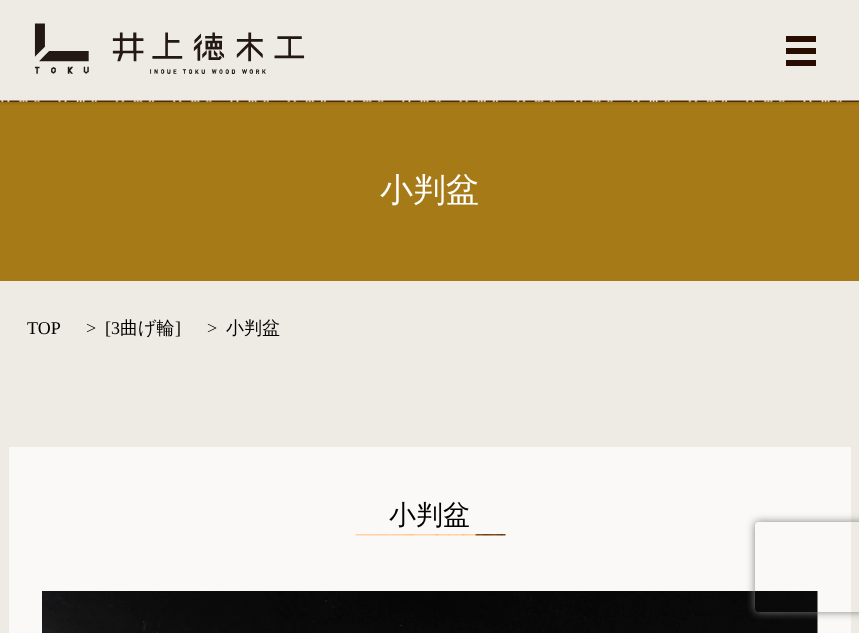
<!DOCTYPE html>
<meta charset="utf-8">
<style>body { margin: 0 } canvas { display: block }</style>
<canvas id="canvas" width="859" height="633"></canvas>
<script type="module">
  const canvas = document.getElementById("canvas");
  const g = canvas.getContext("2d");
  g.miterLimit = 4;
  g.fontKerning = "normal";
  function drawText(s, x, y, [font, color]) {
    g.font = font;
    g.fillStyle = color;
    g.fillText(s, x, y);
  }
  function fillBox(x, y, w, h, color) {
    g.fillStyle = color;
    g.fillRect(x, y, w, h);
  }
  async function drawPicture(src, x, y, w, h) {
    const img = new Image();
    img.src = src;
    await img.decode();
    g.drawImage(img, x, y, w, h);
  }

  const s1 = ["500 33px WenQuanYi Zen Hei", "#FFFFFF"];
  const s2 = ["18px Liberation Serif", "#000000"];
  const s3 = ["500 18px WenQuanYi Zen Hei", "#000000"];
  const s4 = ["500 27px WenQuanYi Zen Hei", "#000000"];

  fillBox(0, 0, 859, 633, "#EEEBE4");
  fillBox(0, 102, 859, 179, "#A67A17");
  g.save();
  g.beginPath();
  g.rect(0, 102, 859, 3);
  g.clip();
  g.fillStyle = "rgba(0, 0, 0, 0.1)";
  g.filter = "blur(1px)";
  g.beginPath();
  g.rect(0, 2, 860, 102);
  g.fill();
  g.filter = "none";
  g.restore();
  await drawPicture("pic1.png", 0, 100, 859, 2);
  await drawPicture("pic2.png", 34, 23, 271, 51);
  fillBox(786, 36, 30, 6, "#280C00");
  fillBox(786, 48, 30, 6, "#280C00");
  fillBox(786, 60, 30, 6, "#280C00");
  drawText("小判盆", 380, 201, s1);
  drawText("TOP", 27, 334, s2);
  drawText(">", 86, 334, s2);
  drawText("[3", 105, 334, s2);
  drawText("曲げ輪", 120, 334, s3);
  drawText("]", 175, 334, s2);
  drawText(">", 207, 334, s2);
  drawText("小判盆", 226, 334, s3);
  fillBox(9, 447, 842, 186, "#FAF9F7");
  drawText("小判盆", 389, 524, s4);
  await drawPicture("pic3.png", 355, 534, 151, 2);
  await drawPicture("pic4.png", 42, 591, 776, 42);
  g.save();
  g.beginPath();
  g.moveTo(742, 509);
  g.lineTo(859, 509);
  g.lineTo(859, 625);
  g.lineTo(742, 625);
  g.closePath();
  g.moveTo(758, 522);
  g.lineTo(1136, 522);
  g.bezierCurveTo(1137.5, 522, 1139, 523.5, 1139, 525);
  g.lineTo(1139, 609);
  g.bezierCurveTo(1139, 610.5, 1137.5, 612, 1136, 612);
  g.lineTo(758, 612);
  g.bezierCurveTo(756.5, 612, 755, 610.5, 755, 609);
  g.lineTo(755, 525);
  g.bezierCurveTo(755, 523.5, 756.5, 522, 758, 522);
  g.closePath();
  g.clip("evenodd");
  g.fillStyle = "#808080";
  g.filter = "blur(4px)";
  g.beginPath();
  g.roundRect(755, 522, 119, 90, 3);
  g.fill();
  g.filter = "none";
  g.restore();
</script>
